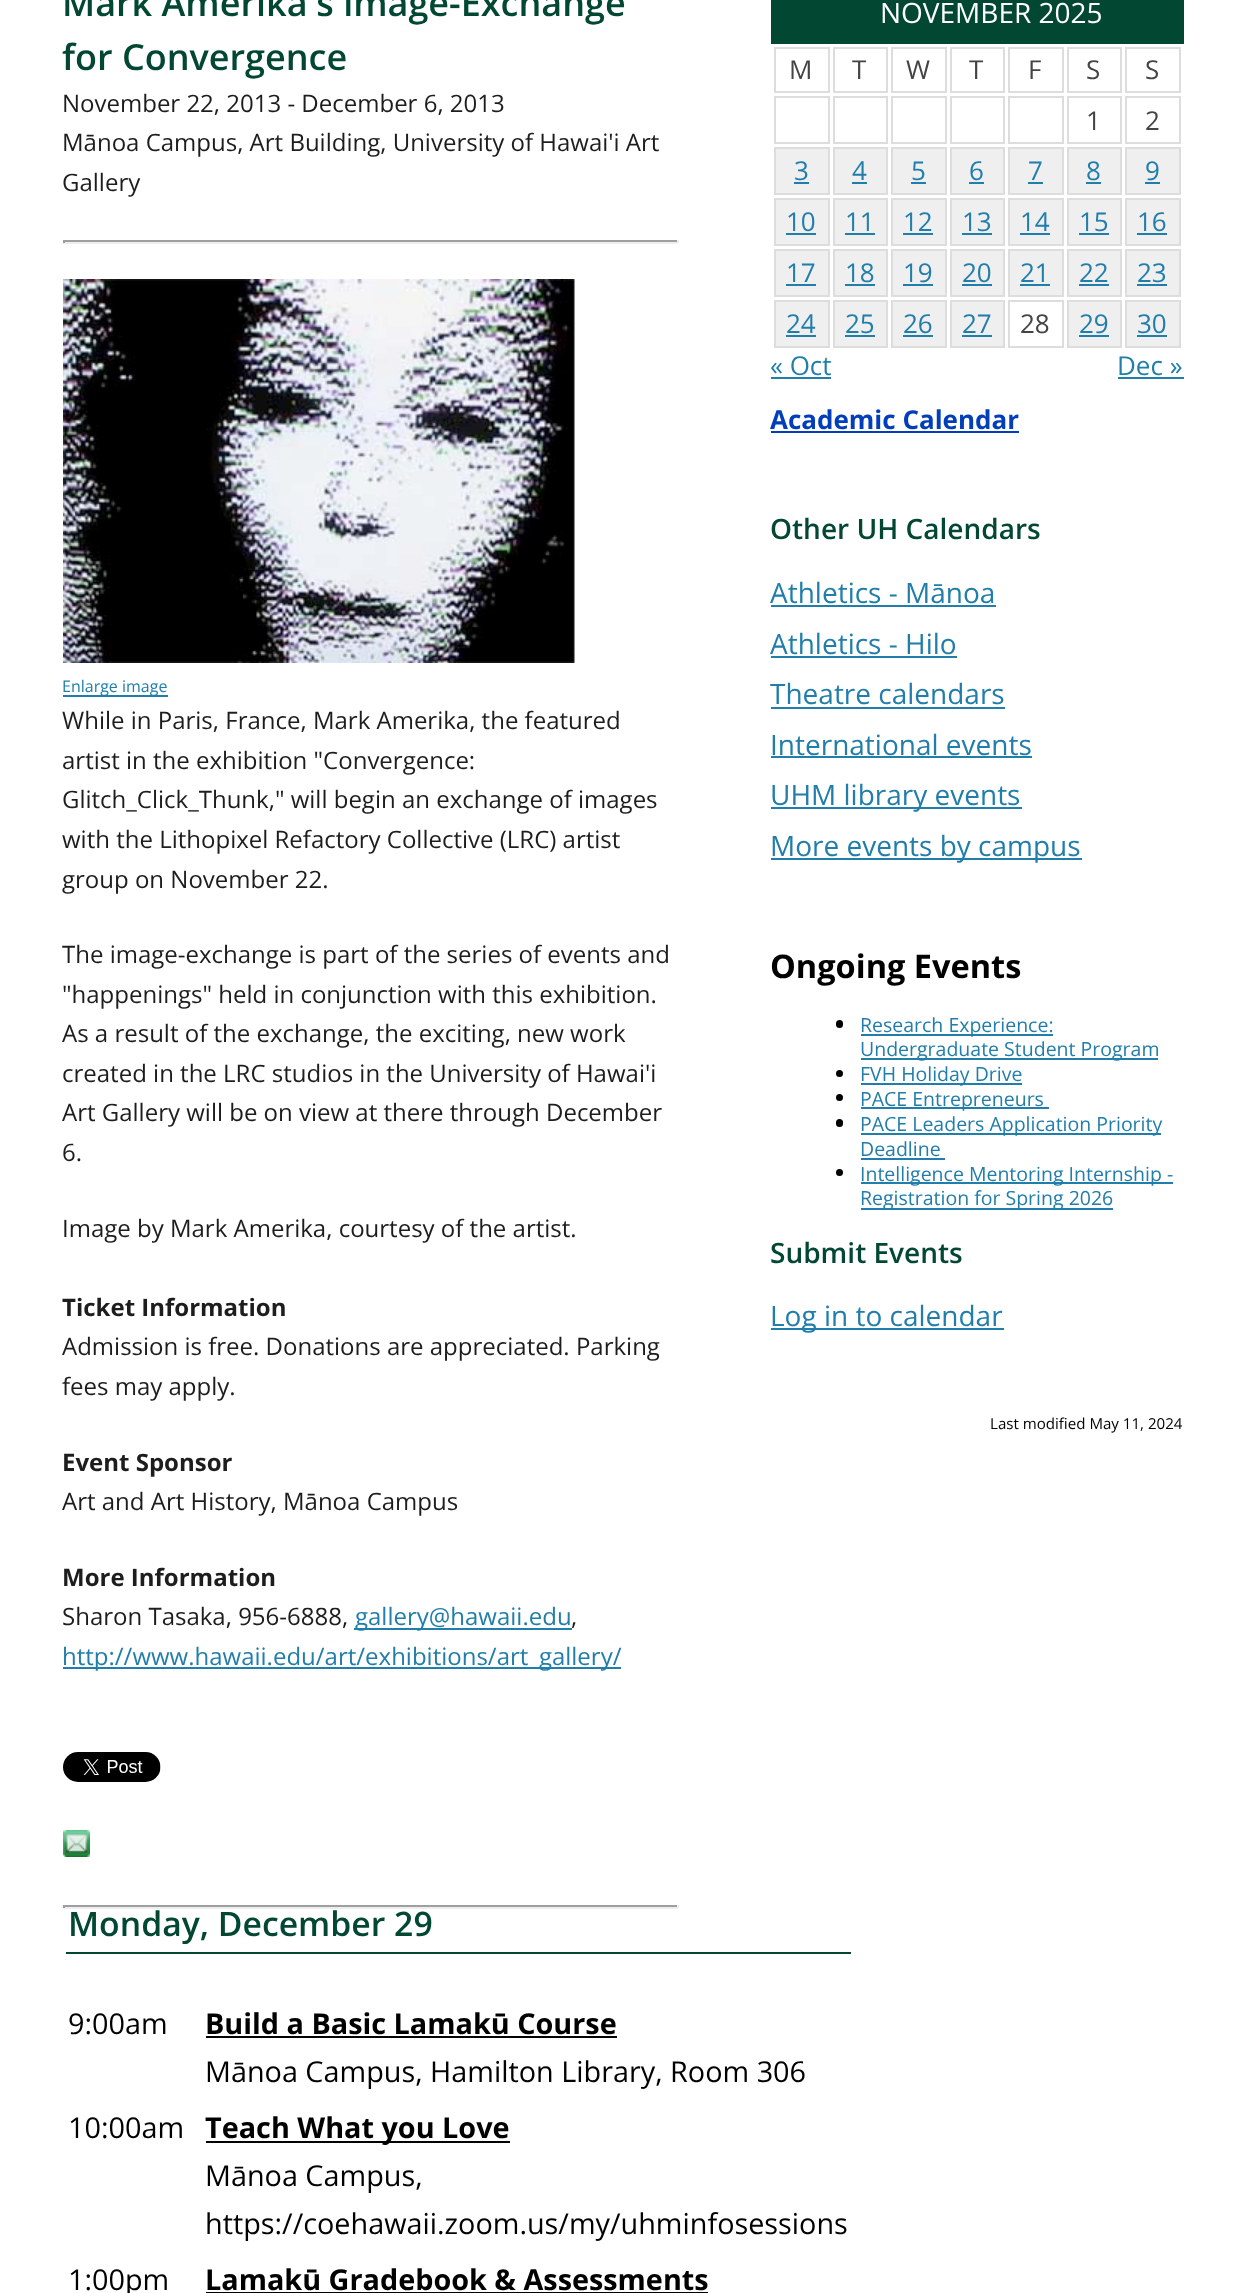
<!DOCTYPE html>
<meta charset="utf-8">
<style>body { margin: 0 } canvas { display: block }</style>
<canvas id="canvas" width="1245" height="2293"></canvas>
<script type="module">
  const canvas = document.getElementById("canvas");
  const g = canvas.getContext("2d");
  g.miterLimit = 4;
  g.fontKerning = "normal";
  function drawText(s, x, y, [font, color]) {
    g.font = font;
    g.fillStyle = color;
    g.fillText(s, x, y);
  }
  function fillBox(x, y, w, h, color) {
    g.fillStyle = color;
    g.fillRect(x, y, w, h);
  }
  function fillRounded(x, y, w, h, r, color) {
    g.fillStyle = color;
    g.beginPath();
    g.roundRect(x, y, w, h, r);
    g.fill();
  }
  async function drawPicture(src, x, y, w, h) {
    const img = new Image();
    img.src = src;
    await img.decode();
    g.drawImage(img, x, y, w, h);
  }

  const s1 = ["600 36px Open Sans", "#024731"];
  const s2 = ["24px Open Sans", "#1D1D1D"];
  const s3 = ["16px Open Sans", "#217EAB"];
  const s4 = ["bold 24px Open Sans", "#1D1D1D"];
  const s5 = ["24px Open Sans", "#217EAB"];
  const s6 = ["600 33.75px Open Sans", "#024731"];
  const s7 = ["28.8px Open Sans", "#000000"];
  const s8 = ["bold 28.8px Open Sans", "#000000"];
  const s9 = ["28px Open Sans", "#FFFFFF"];
  const s10 = ["26px Open Sans", "#444444"];
  const s11 = ["26px Open Sans", "#217EAB"];
  const s12 = ["bold 26px Open Sans", "#003EBC"];
  const s13 = ["600 28px Open Sans", "#024731"];
  const s14 = ["28px Open Sans", "#217EAB"];
  const s15 = ["bold 32.5px Open Sans", "#000000"];
  const s16 = ["19.5px Open Sans", "#217EAB"];
  const s17 = ["15.1px Open Sans", "#000000"];

  fillBox(0, 0, 1245, 2293, "#FFFFFF");
  drawText("Mark Amerika's image-Exchange", 62, 16, s1);
  drawText("for Convergence", 62, 70, s1);
  drawText("November 22, 2013 - December 6, 2013", 62, 112, s2);
  drawText("Mānoa Campus, Art Building, University of Hawai'i Art", 62, 151, s2);
  drawText("Gallery", 62, 191, s2);
  fillBox(63, 240, 615, 2, "#9F9F9F");
  fillBox(677, 240, 2, 3, "#EEEEEE");
  fillBox(63, 242, 615, 2, "#EEEEEE");
  fillBox(63, 240, 2, 3, "#9F9F9F");
  await drawPicture("pic1.png", 63, 279, 512, 384);
  fillBox(63, 695, 105, 2, "#217EAB");
  drawText("Enlarge image", 62, 692, s3);
  drawText("While in Paris, France, Mark Amerika, the featured", 62, 729, s2);
  drawText("artist in the exhibition \"Convergence:", 62, 769, s2);
  drawText("Glitch_Click_Thunk,\" will begin an exchange of images", 62, 808, s2);
  drawText("with the Lithopixel Refactory Collective (LRC) artist", 62, 848, s2);
  drawText("group on November 22.", 62, 888, s2);
  drawText("The image-exchange is part of the series of events and", 62, 963, s2);
  drawText("\"happenings\" held in conjunction with this exhibition.", 62, 1003, s2);
  drawText("As a result of the exchange, the exciting, new work", 62, 1042, s2);
  drawText("created in the LRC studios in the University of Hawai'i", 62, 1082, s2);
  drawText("Art Gallery will be on view at there through December", 62, 1121, s2);
  drawText("6.", 62, 1161, s2);
  drawText("Image by Mark Amerika, courtesy of the artist.", 62, 1237, s2);
  drawText("Ticket Information", 62, 1316, s4);
  drawText("Admission is free. Donations are appreciated. Parking", 62, 1355, s2);
  drawText("fees may apply.", 62, 1395, s2);
  drawText("Event Sponsor", 62, 1471, s4);
  drawText("Art and Art History, Mānoa Campus", 62, 1510, s2);
  drawText("More Information", 62, 1586, s4);
  drawText("Sharon Tasaka, 956-6888,", 62, 1625, s2);
  fillBox(354, 1628, 218, 2, "#217EAB");
  drawText("gallery@hawaii.edu", 355, 1625, s5);
  drawText(",", 571, 1625, s2);
  fillBox(63, 1667, 558, 2, "#217EAB");
  drawText("http://www.hawaii.edu/art/exhibitions/art_gallery/", 62, 1665, s5);
  await drawPicture("pic2.png", 63, 1752, 98, 30);
  await drawPicture("pic3.png", 63, 1830, 27, 27);
  fillBox(63, 1905, 615, 2, "#9F9F9F");
  fillBox(677, 1905, 2, 3, "#EEEEEE");
  fillBox(63, 1907, 615, 2, "#EEEEEE");
  fillBox(63, 1905, 2, 3, "#9F9F9F");
  fillBox(66, 1952, 785, 2, "#024731");
  drawText("Monday, December 29", 68, 1936, s6);
  drawText("9:00am", 68, 2034, s7);
  drawText("Build a Basic Lamakū Course", 205, 2034, s8);
  fillBox(206, 2036, 411, 2, "#000000");
  drawText("Mānoa Campus, Hamilton Library, Room 306", 205, 2082, s7);
  drawText("10:00am", 68, 2138, s7);
  fillBox(206, 2141, 304, 2, "#000000");
  drawText("Teach What you Love", 205, 2138, s8);
  drawText("Mānoa Campus,", 205, 2186, s7);
  drawText("https://coehawaii.zoom.us/my/uhminfosessions", 205, 2234, s7);
  drawText("1:00pm", 68, 2290, s7);
  drawText("Lamakū Gradebook & Assessments", 205, 2290, s8);
  fillBox(206, 2292, 502, 1, "#000000");
  fillBox(771, 0, 413, 44, "#024731");
  drawText("NOVEMBER 2025", 880, 23, s9);
  g.strokeStyle = "#DDDDDD";
  g.lineWidth = 2;
  g.strokeRect(775, 48, 54, 44);
  drawText("M", 789, 79, s10);
  g.strokeRect(834, 48, 53, 44);
  drawText("T", 852, 79, s10);
  g.strokeRect(892, 48, 54, 44);
  drawText("W", 906, 79, s10);
  g.strokeRect(951, 48, 53, 44);
  drawText("T", 969, 79, s10);
  g.strokeRect(1009, 48, 54, 44);
  drawText("F", 1028, 79, s10);
  g.strokeRect(1068, 48, 53, 44);
  drawText("S", 1086, 79, s10);
  g.strokeRect(1126, 48, 54, 44);
  drawText("S", 1145, 79, s10);
  g.strokeRect(775, 97, 54, 46);
  g.strokeRect(834, 97, 53, 46);
  g.strokeRect(892, 97, 54, 46);
  g.strokeRect(951, 97, 53, 46);
  g.strokeRect(1009, 97, 54, 46);
  g.strokeRect(1068, 97, 53, 46);
  drawText("1", 1086, 130, s10);
  g.strokeRect(1126, 97, 54, 46);
  drawText("2", 1145, 130, s10);
  g.fillStyle = "#EFEFEF";
  g.beginPath();
  g.rect(775, 148, 54, 46);
  g.fill();
  g.stroke();
  drawText("3", 794, 180, s11);
  fillBox(794, 182, 15, 2, "#217EAB");
  g.fillStyle = "#EFEFEF";
  g.beginPath();
  g.rect(834, 148, 53, 46);
  g.fill();
  g.stroke();
  drawText("4", 852, 180, s11);
  fillBox(852, 182, 15, 2, "#217EAB");
  g.fillStyle = "#EFEFEF";
  g.beginPath();
  g.rect(892, 148, 54, 46);
  g.fill();
  g.stroke();
  drawText("5", 911, 180, s11);
  fillBox(911, 182, 15, 2, "#217EAB");
  g.fillStyle = "#EFEFEF";
  g.beginPath();
  g.rect(951, 148, 53, 46);
  g.fill();
  g.stroke();
  drawText("6", 969, 180, s11);
  fillBox(969, 182, 15, 2, "#217EAB");
  g.fillStyle = "#EFEFEF";
  g.beginPath();
  g.rect(1009, 148, 54, 46);
  g.fill();
  g.stroke();
  drawText("7", 1028, 180, s11);
  fillBox(1028, 182, 15, 2, "#217EAB");
  g.fillStyle = "#EFEFEF";
  g.beginPath();
  g.rect(1068, 148, 53, 46);
  g.fill();
  g.stroke();
  drawText("8", 1086, 180, s11);
  fillBox(1086, 182, 15, 2, "#217EAB");
  g.fillStyle = "#EFEFEF";
  g.beginPath();
  g.rect(1126, 148, 54, 46);
  g.fill();
  g.stroke();
  drawText("9", 1145, 180, s11);
  fillBox(1145, 182, 15, 2, "#217EAB");
  g.fillStyle = "#EFEFEF";
  g.beginPath();
  g.rect(775, 199, 54, 46);
  g.fill();
  g.stroke();
  drawText("10", 786, 231, s11);
  fillBox(786, 233, 30, 2, "#217EAB");
  g.fillStyle = "#EFEFEF";
  g.beginPath();
  g.rect(834, 199, 53, 46);
  g.fill();
  g.stroke();
  drawText("11", 845, 231, s11);
  fillBox(845, 233, 30, 2, "#217EAB");
  g.fillStyle = "#EFEFEF";
  g.beginPath();
  g.rect(892, 199, 54, 46);
  g.fill();
  g.stroke();
  drawText("12", 903, 231, s11);
  fillBox(903, 233, 30, 2, "#217EAB");
  g.fillStyle = "#EFEFEF";
  g.beginPath();
  g.rect(951, 199, 53, 46);
  g.fill();
  g.stroke();
  drawText("13", 962, 231, s11);
  fillBox(962, 233, 30, 2, "#217EAB");
  g.fillStyle = "#EFEFEF";
  g.beginPath();
  g.rect(1009, 199, 54, 46);
  g.fill();
  g.stroke();
  drawText("14", 1020, 231, s11);
  fillBox(1020, 233, 30, 2, "#217EAB");
  g.fillStyle = "#EFEFEF";
  g.beginPath();
  g.rect(1068, 199, 53, 46);
  g.fill();
  g.stroke();
  drawText("15", 1079, 231, s11);
  fillBox(1079, 233, 30, 2, "#217EAB");
  g.fillStyle = "#EFEFEF";
  g.beginPath();
  g.rect(1126, 199, 54, 46);
  g.fill();
  g.stroke();
  drawText("16", 1137, 231, s11);
  fillBox(1137, 233, 30, 2, "#217EAB");
  g.fillStyle = "#EFEFEF";
  g.beginPath();
  g.rect(775, 250, 54, 46);
  g.fill();
  g.stroke();
  drawText("17", 786, 282, s11);
  fillBox(786, 284, 30, 2, "#217EAB");
  g.fillStyle = "#EFEFEF";
  g.beginPath();
  g.rect(834, 250, 53, 46);
  g.fill();
  g.stroke();
  drawText("18", 845, 282, s11);
  fillBox(845, 284, 30, 2, "#217EAB");
  g.fillStyle = "#EFEFEF";
  g.beginPath();
  g.rect(892, 250, 54, 46);
  g.fill();
  g.stroke();
  drawText("19", 903, 282, s11);
  fillBox(903, 284, 30, 2, "#217EAB");
  g.fillStyle = "#EFEFEF";
  g.beginPath();
  g.rect(951, 250, 53, 46);
  g.fill();
  g.stroke();
  drawText("20", 962, 282, s11);
  fillBox(962, 284, 30, 2, "#217EAB");
  g.fillStyle = "#EFEFEF";
  g.beginPath();
  g.rect(1009, 250, 54, 46);
  g.fill();
  g.stroke();
  drawText("21", 1020, 282, s11);
  fillBox(1020, 284, 30, 2, "#217EAB");
  g.fillStyle = "#EFEFEF";
  g.beginPath();
  g.rect(1068, 250, 53, 46);
  g.fill();
  g.stroke();
  drawText("22", 1079, 282, s11);
  fillBox(1079, 284, 30, 2, "#217EAB");
  g.fillStyle = "#EFEFEF";
  g.beginPath();
  g.rect(1126, 250, 54, 46);
  g.fill();
  g.stroke();
  drawText("23", 1137, 282, s11);
  fillBox(1137, 284, 30, 2, "#217EAB");
  g.fillStyle = "#EFEFEF";
  g.beginPath();
  g.rect(775, 301, 54, 46);
  g.fill();
  g.stroke();
  drawText("24", 786, 333, s11);
  fillBox(786, 335, 30, 2, "#217EAB");
  g.fillStyle = "#EFEFEF";
  g.beginPath();
  g.rect(834, 301, 53, 46);
  g.fill();
  g.stroke();
  drawText("25", 845, 333, s11);
  fillBox(845, 335, 30, 2, "#217EAB");
  g.fillStyle = "#EFEFEF";
  g.beginPath();
  g.rect(892, 301, 54, 46);
  g.fill();
  g.stroke();
  drawText("26", 903, 333, s11);
  fillBox(903, 335, 30, 2, "#217EAB");
  g.fillStyle = "#EFEFEF";
  g.beginPath();
  g.rect(951, 301, 53, 46);
  g.fill();
  g.stroke();
  drawText("27", 962, 333, s11);
  fillBox(962, 335, 30, 2, "#217EAB");
  g.strokeRect(1009, 301, 54, 46);
  drawText("28", 1020, 333, s10);
  g.fillStyle = "#EFEFEF";
  g.beginPath();
  g.rect(1068, 301, 53, 46);
  g.fill();
  g.stroke();
  drawText("29", 1079, 333, s11);
  fillBox(1079, 335, 30, 2, "#217EAB");
  g.fillStyle = "#EFEFEF";
  g.beginPath();
  g.rect(1126, 301, 54, 46);
  g.fill();
  g.stroke();
  drawText("30", 1137, 333, s11);
  fillBox(1137, 335, 30, 2, "#217EAB");
  drawText("« Oct", 770, 375, s11);
  fillBox(771, 377, 60, 2, "#217EAB");
  drawText("Dec »", 1117, 375, s11);
  fillBox(1118, 377, 66, 2, "#217EAB");
  drawText("Academic Calendar", 770, 429, s12);
  fillBox(771, 431, 248, 2, "#003EBC");
  drawText("Other UH Calendars", 770, 539, s13);
  drawText("Athletics - Mānoa", 770, 603, s14);
  fillBox(771, 605, 225, 2, "#217EAB");
  drawText("Athletics - Hilo", 770, 654, s14);
  fillBox(771, 656, 186, 2, "#217EAB");
  drawText("Theatre calendars", 770, 704, s14);
  fillBox(771, 707, 234, 2, "#217EAB");
  drawText("International events", 770, 755, s14);
  fillBox(771, 756, 261, 2, "#217EAB");
  fillBox(771, 807, 251, 2, "#217EAB");
  drawText("UHM library events", 770, 805, s14);
  fillBox(771, 858, 311, 2, "#217EAB");
  drawText("More events by campus", 770, 856, s14);
  drawText("Ongoing Events", 770, 978, s15);
  fillRounded(836, 1020, 7, 8, 3.5, "#000000");
  fillBox(861, 1034, 192, 2, "#217EAB");
  drawText("Research Experience:", 860, 1032, s16);
  fillBox(861, 1058, 297, 2, "#217EAB");
  drawText("Undergraduate Student Program", 860, 1056, s16);
  g.fillStyle = "#000000";
  g.beginPath();
  g.arc(839.5, 1073.5, 3.5, 0, Math.PI * 2);
  g.fill();
  fillBox(861, 1083, 161, 2, "#217EAB");
  drawText("FVH Holiday Drive", 860, 1081, s16);
  g.fillStyle = "#000000";
  g.beginPath();
  g.arc(839.5, 1097.5, 3.5, 0, Math.PI * 2);
  g.fill();
  fillBox(861, 1107, 188, 2, "#217EAB");
  drawText("PACE Entrepreneurs", 860, 1106, s16);
  fillRounded(836, 1119, 7, 8, 3.5, "#000000");
  fillBox(861, 1133, 300, 2, "#217EAB");
  drawText("PACE Leaders Application Priority", 860, 1131, s16);
  drawText("Deadline", 860, 1156, s16);
  fillBox(861, 1158, 84, 2, "#217EAB");
  g.fillStyle = "#000000";
  g.beginPath();
  g.arc(839.5, 1172.5, 3.5, 0, Math.PI * 2);
  g.fill();
  fillBox(861, 1182, 312, 2, "#217EAB");
  drawText("Intelligence Mentoring Internship -", 860, 1181, s16);
  fillBox(861, 1208, 252, 2, "#217EAB");
  drawText("Registration for Spring 2026", 860, 1205, s16);
  drawText("Submit Events", 770, 1263, s13);
  fillBox(771, 1328, 233, 2, "#217EAB");
  drawText("Log in to calendar", 770, 1326, s14);
  drawText("Last modified May 11, 2024", 990, 1429, s17);
</script>
